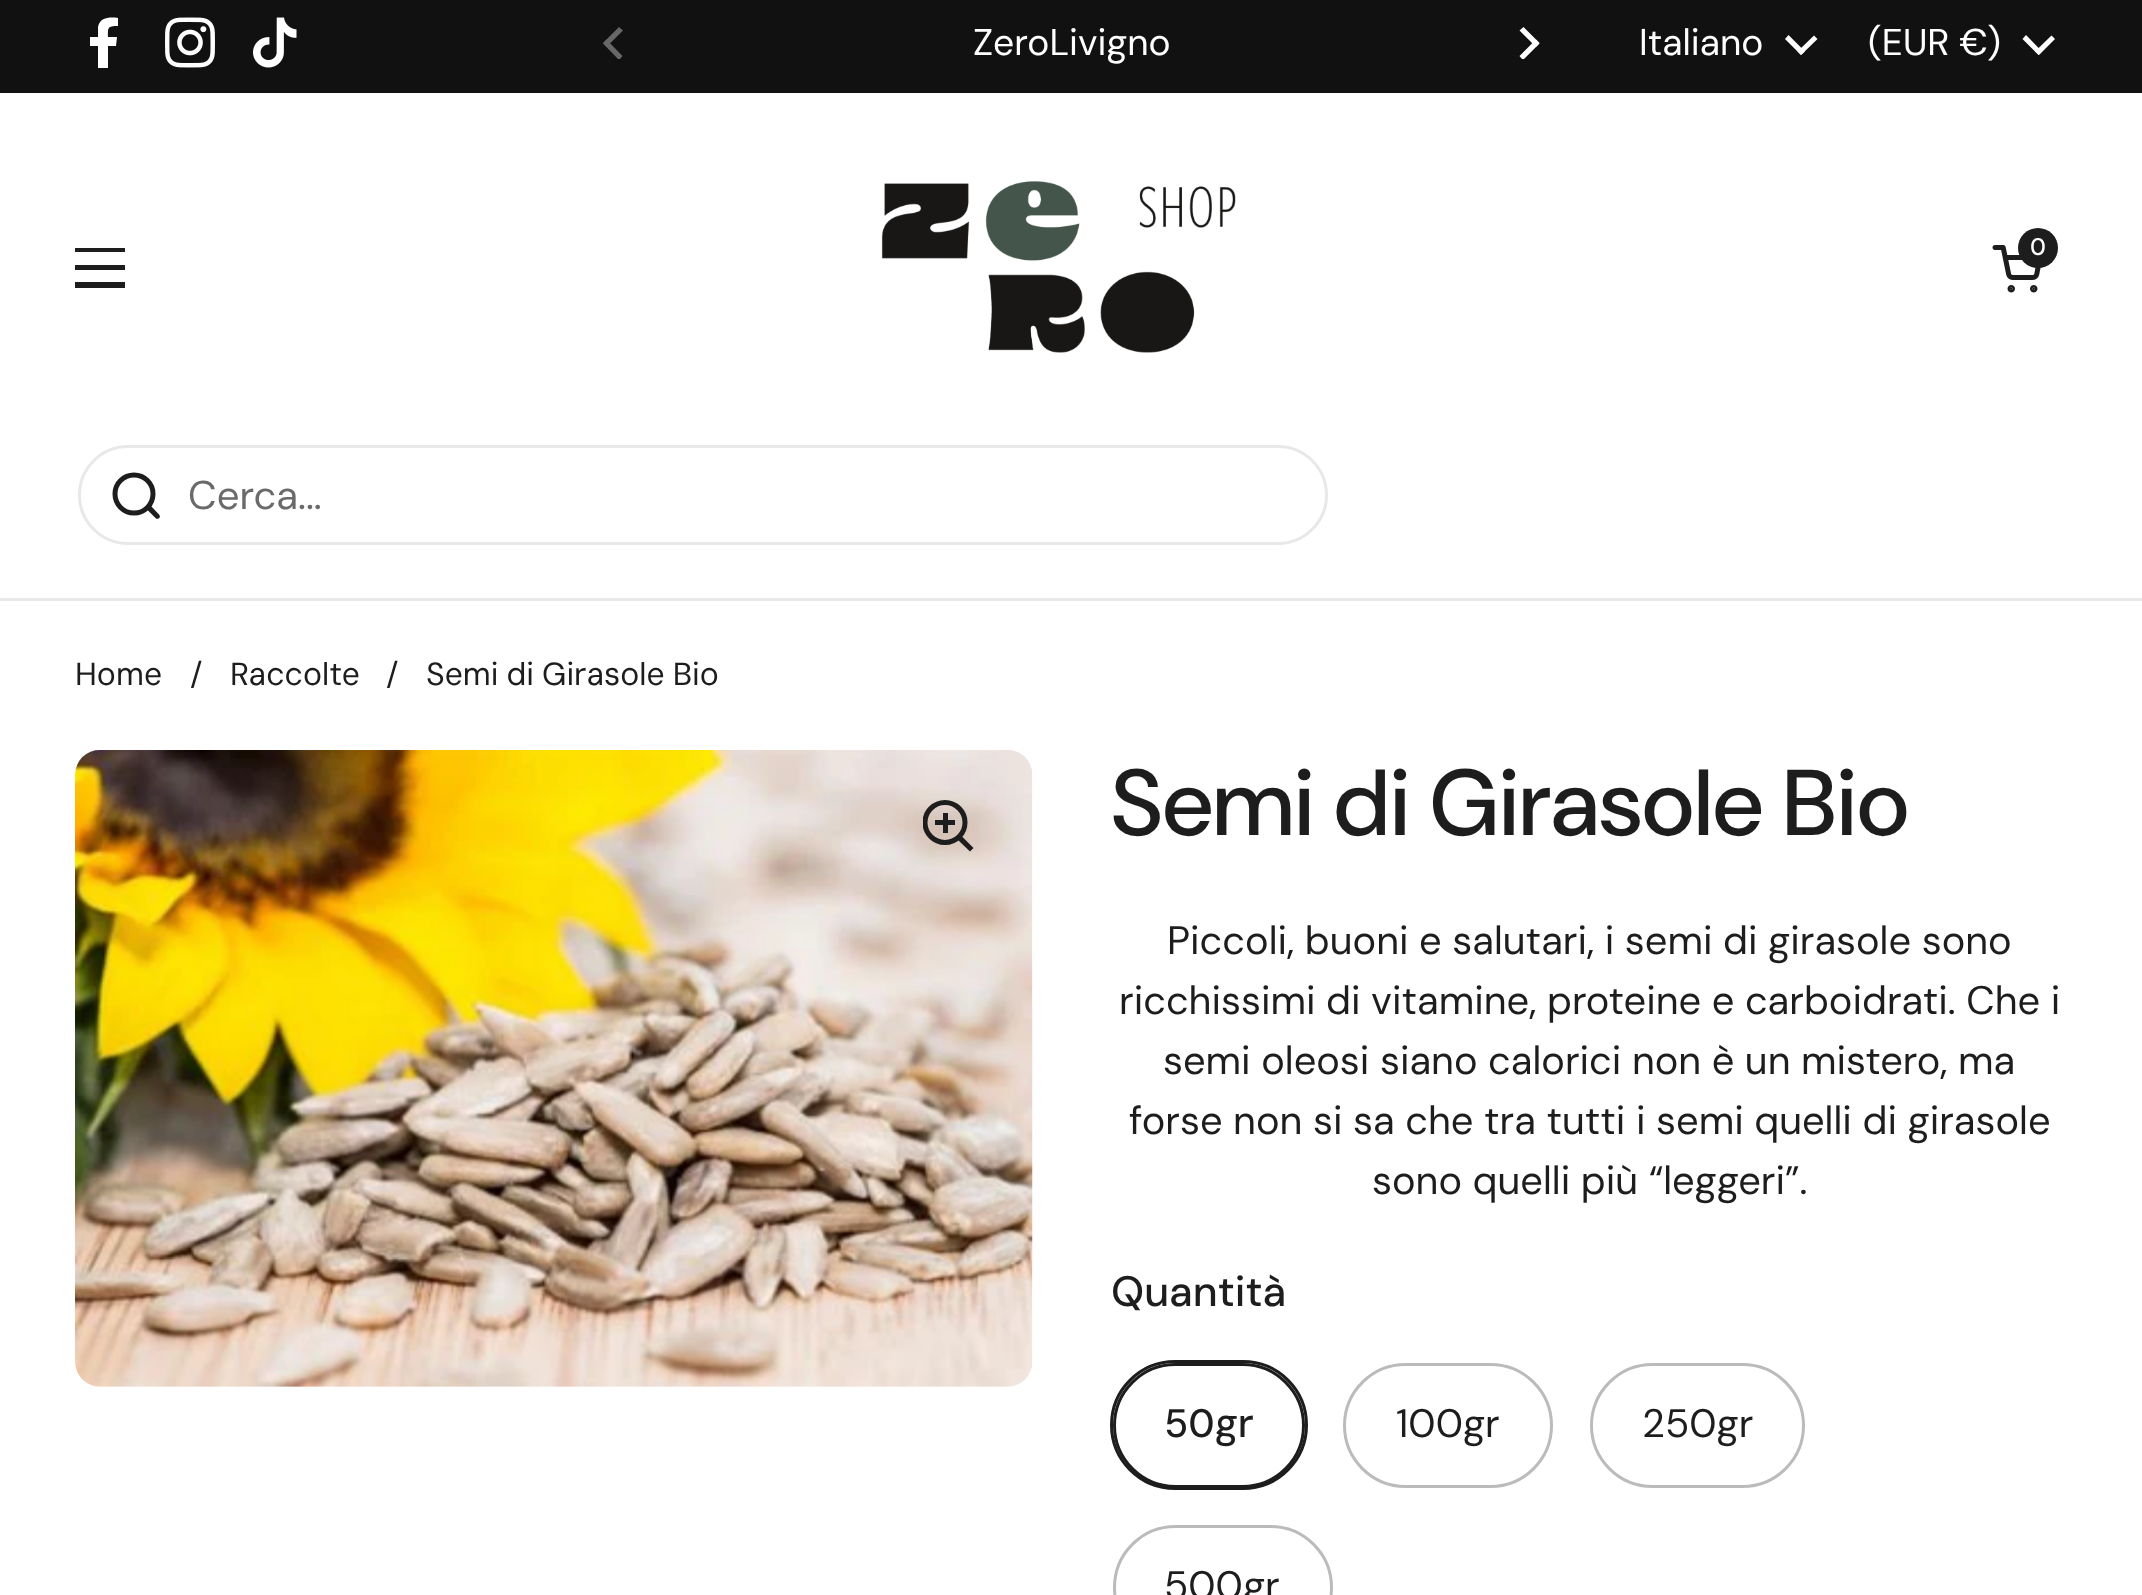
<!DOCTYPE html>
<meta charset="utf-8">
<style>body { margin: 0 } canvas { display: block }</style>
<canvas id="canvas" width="2142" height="1595"></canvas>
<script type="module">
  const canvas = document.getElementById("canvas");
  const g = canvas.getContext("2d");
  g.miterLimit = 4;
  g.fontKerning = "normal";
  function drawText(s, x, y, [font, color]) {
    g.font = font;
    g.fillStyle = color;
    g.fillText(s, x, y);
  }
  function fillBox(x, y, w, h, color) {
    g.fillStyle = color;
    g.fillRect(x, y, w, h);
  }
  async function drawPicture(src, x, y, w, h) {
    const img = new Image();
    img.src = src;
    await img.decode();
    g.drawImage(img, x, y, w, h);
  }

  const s1 = ["37.25px DM Sans", "#FFFFFF"];
  const s2 = ["500 24px 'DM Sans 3'", "#FFFFFF"];
  const s3 = ["40px 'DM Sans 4'", "#6A6A6A"];
  const s4 = ["31.9px 'DM Sans 3'", "#1D1D1D"];
  const s5 = ["500 93.25px DM Sans", "#1D1D1D"];
  const s6 = ["39.8px 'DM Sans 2'", "#1D1D1D"];
  const s7 = ["500 42.5px 'DM Sans 2'", "#1D1D1D"];
  const s8 = ["500 39.8px 'DM Sans 3'", "#1D1D1D"];

  fillBox(0, 0, 2142, 1595, "#FFFFFF");
  fillBox(0, 0, 2142, 93, "#111111");
  g.fillStyle = "#FFFFFF";
  g.beginPath();
  g.moveTo(116, 46);
  g.lineTo(117, 37);
  g.lineTo(108, 37);
  g.bezierCurveTo(108, 28, 107, 26, 118, 26);
  g.lineTo(118, 18);
  g.bezierCurveTo(110, 17, 100, 17, 98, 27);
  g.lineTo(98, 37);
  g.lineTo(90, 37);
  g.lineTo(90, 46);
  g.lineTo(98, 46);
  g.lineTo(98, 68);
  g.lineTo(108, 68);
  g.lineTo(108, 46);
  g.closePath();
  g.fill();
  await drawPicture("pic1.png", 165, 17, 50, 51);
  await drawPicture("pic2.png", 253, 17, 44, 51);
  g.fillStyle = "#676767";
  g.beginPath();
  g.moveTo(623, 30.5);
  g.lineTo(606.5, 47);
  g.lineTo(603, 43);
  g.lineTo(619, 27);
  g.closePath();
  g.fill();
  g.beginPath();
  g.moveTo(618, 59);
  g.lineTo(603, 43.5);
  g.lineTo(606.5, 39.5);
  g.lineTo(622.5, 56);
  g.lineTo(620, 59);
  g.closePath();
  g.fill();
  drawText("ZeroLivigno", 973, 55, s1);
  g.beginPath();
  g.moveTo(1519.5, 56);
  g.lineTo(1536, 39.5);
  g.lineTo(1539.5, 43.5);
  g.lineTo(1524, 59);
  g.lineTo(1522, 59);
  g.closePath();
  g.fill();
  g.beginPath();
  g.moveTo(1523.5, 27);
  g.lineTo(1539.5, 43);
  g.lineTo(1536, 47);
  g.lineTo(1519.5, 30.5);
  g.closePath();
  g.fill();
  drawText("Italiano", 1639, 55, s1);
  g.beginPath();
  g.moveTo(1788.5, 35);
  g.lineTo(1805, 51.5);
  g.lineTo(1801, 55);
  g.lineTo(1785, 39);
  g.closePath();
  g.fill();
  g.beginPath();
  g.moveTo(1817.5, 39);
  g.lineTo(1801, 55);
  g.lineTo(1797.5, 51.5);
  g.lineTo(1814, 35.5);
  g.closePath();
  g.fill();
  drawText("(EUR €)", 1868, 55, s1);
  g.beginPath();
  g.moveTo(2026, 35);
  g.lineTo(2042, 51.5);
  g.lineTo(2038.5, 55);
  g.lineTo(2022.5, 39);
  g.closePath();
  g.fill();
  g.beginPath();
  g.moveTo(2055, 39);
  g.lineTo(2039, 55);
  g.lineTo(2035, 51.5);
  g.lineTo(2051.5, 35.5);
  g.closePath();
  g.fill();
  fillBox(75, 248, 50, 4, "#1D1D1D");
  fillBox(75, 265, 50, 5, "#1D1D1D");
  fillBox(75, 282, 50, 6, "#1D1D1D");
  await drawPicture("pic3.png", 881, 181, 355, 172);
  await drawPicture("pic4.png", 1992, 245, 49, 48);
  g.beginPath();
  g.arc(2038, 248, 20, 0, Math.PI * 2);
  g.fill();
  drawText("0", 2030, 255, s2);
  fillBox(0, 598, 2142, 3, "#E8E8E8");
  g.beginPath();
  g.roundRect(79.5, 446.5, 1247, 97, 48.5);
  g.strokeStyle = "#E8E8E8";
  g.lineWidth = 3;
  g.stroke();
  g.beginPath();
  g.arc(134, 494, 19, 0, Math.PI * 2);
  g.strokeStyle = "#1D1D1D";
  g.lineWidth = 5;
  g.stroke();
  g.fillStyle = "#1D1D1D";
  g.beginPath();
  g.moveTo(150.5, 505.5);
  g.lineTo(148.5, 504);
  g.lineTo(145, 507.5);
  g.lineTo(147, 509.5);
  g.closePath();
  g.moveTo(155.5, 518);
  g.bezierCurveTo(158, 520.5, 161.5, 517, 159, 514.5);
  g.closePath();
  g.moveTo(147, 509.5);
  g.lineTo(155.5, 518);
  g.lineTo(159, 514.5);
  g.lineTo(150.5, 505.5);
  g.closePath();
  g.fill();
  drawText("Cerca...", 188, 509, s3);
  drawText("Home", 75, 685, s4);
  drawText("/", 190, 685, s4);
  drawText("Raccolte", 230, 685, s4);
  drawText("/", 386, 685, s4);
  g.wordSpacing = "-0.5px";
  drawText("Semi di Girasole Bio", 426, 685, s4);
  await drawPicture("pic5.png", 75, 750, 958, 637);
  g.save();
  g.beginPath();
  g.rect(923, 800, 52, 53);
  g.clip();
  g.beginPath();
  g.arc(945, 822.5, 20, 0, Math.PI * 2);
  g.stroke();
  g.restore();
  fillBox(943, 813, 5, 20, "#1D1D1D");
  fillBox(935, 820, 20, 5, "#1D1D1D");
  g.beginPath();
  g.moveTo(958, 840);
  g.lineTo(962, 836.5);
  g.lineTo(973.5, 848);
  g.lineTo(970, 851.5);
  g.closePath();
  g.fill();
  g.wordSpacing = "0px";
  drawText("Semi di Girasole Bio", 1111, 835, s5);
  drawText("Piccoli, buoni e salutari, i semi di girasole sono", 1167, 954, s6);
  drawText("ricchissimi di vitamine, proteine e carboidrati. Che i", 1119, 1014, s6);
  drawText("semi oleosi siano calorici non è un mistero, ma", 1163, 1074, s6);
  drawText("forse non si sa che tra tutti i semi quelli di girasole", 1129, 1134, s6);
  drawText("sono quelli più “leggeri”.", 1372, 1194, s6);
  drawText("Quantità", 1111, 1306, s7);
  g.beginPath();
  g.roundRect(1111.5, 1361.5, 195, 127, 63.5);
  g.lineWidth = 3;
  g.stroke();
  g.beginPath();
  g.roundRect(1114.5, 1364.5, 189, 122, 61);
  g.stroke();
  drawText("50gr", 1164, 1437, s8);
  g.beginPath();
  g.roundRect(1344.5, 1364.5, 207, 122, 61);
  g.strokeStyle = "#BBBBBB";
  g.stroke();
  drawText("100gr", 1396, 1437, s6);
  g.beginPath();
  g.roundRect(1591.5, 1364.5, 212, 122, 61);
  g.stroke();
  drawText("250gr", 1642, 1437, s6);
  g.beginPath();
  g.roundRect(1114.5, 1526.5, 217, 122, 61);
  g.stroke();
  drawText("500gr", 1164, 1599, s6);
</script>
